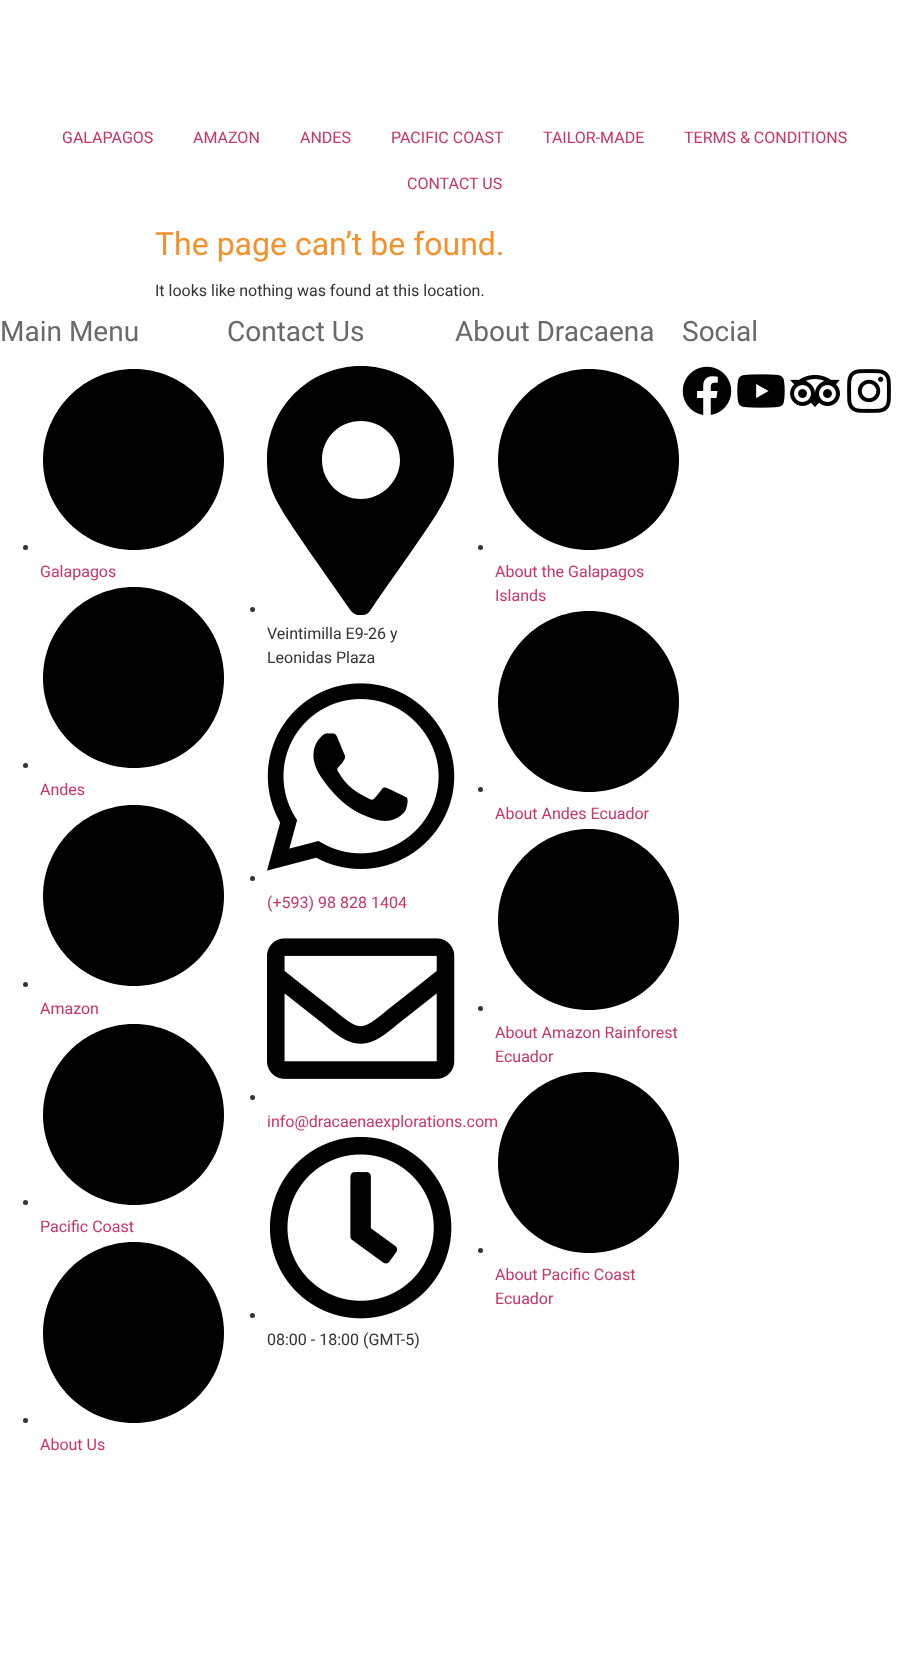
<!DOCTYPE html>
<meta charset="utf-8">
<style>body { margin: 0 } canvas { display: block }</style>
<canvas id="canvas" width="909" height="1672"></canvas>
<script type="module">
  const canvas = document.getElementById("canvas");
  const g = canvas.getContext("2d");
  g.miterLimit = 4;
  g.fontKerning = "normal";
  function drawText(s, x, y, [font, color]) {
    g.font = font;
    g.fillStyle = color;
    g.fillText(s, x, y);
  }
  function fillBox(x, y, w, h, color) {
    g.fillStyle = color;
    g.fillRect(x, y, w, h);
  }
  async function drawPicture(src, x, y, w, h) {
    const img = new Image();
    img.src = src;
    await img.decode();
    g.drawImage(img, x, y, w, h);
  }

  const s1 = ["16px Roboto", "#CC3366"];
  const s2 = ["32px Roboto", "#F4912C"];
  const s3 = ["16px Roboto", "#333333"];
  const s4 = ["28px Roboto", "#696969"];

  fillBox(0, 0, 909, 1672, "#FFFFFF");
  drawText("GALAPAGOS", 62, 143, s1);
  drawText("AMAZON", 193, 143, s1);
  drawText("ANDES", 300, 143, s1);
  drawText("PACIFIC COAST", 391, 143, s1);
  drawText("TAILOR-MADE", 543, 143, s1);
  drawText("TERMS & CONDITIONS", 684, 143, s1);
  drawText("CONTACT US", 407, 189, s1);
  drawText("The page can’t be found.", 155, 255, s2);
  drawText("It looks like nothing was found at this location.", 155, 296, s3);
  drawText("Main Menu", 0, 341, s4);
  g.fillStyle = "#333333";
  g.beginPath();
  g.arc(25.5, 547.5, 2.5, 0, Math.PI * 2);
  g.fill();
  drawText("Galapagos", 40, 577, s1);
  g.fillStyle = "#000000";
  g.beginPath();
  g.moveTo(134, 369);
  g.bezierCurveTo(84, 369, 43, 410, 43, 460);
  g.bezierCurveTo(43, 510, 84, 550, 134, 550);
  g.bezierCurveTo(184, 550, 224, 510, 224, 460);
  g.bezierCurveTo(224, 410, 184, 369, 134, 369);
  g.closePath();
  g.fill();
  g.fillStyle = "#333333";
  g.beginPath();
  g.arc(25.5, 765.5, 2.5, 0, Math.PI * 2);
  g.fill();
  drawText("Andes", 40, 795, s1);
  g.fillStyle = "#000000";
  g.beginPath();
  g.moveTo(134, 587);
  g.bezierCurveTo(84, 587, 43, 628, 43, 678);
  g.bezierCurveTo(43, 728, 84, 768, 134, 768);
  g.bezierCurveTo(184, 768, 224, 728, 224, 678);
  g.bezierCurveTo(224, 628, 184, 587, 134, 587);
  g.closePath();
  g.fill();
  g.fillStyle = "#333333";
  g.beginPath();
  g.arc(25.5, 984.5, 2.5, 0, Math.PI * 2);
  g.fill();
  drawText("Amazon", 40, 1014, s1);
  g.fillStyle = "#000000";
  g.beginPath();
  g.moveTo(134, 805);
  g.bezierCurveTo(84, 805, 43, 846, 43, 896);
  g.bezierCurveTo(43, 946, 84, 986, 134, 986);
  g.bezierCurveTo(184, 986, 224, 946, 224, 896);
  g.bezierCurveTo(224, 846, 184, 805, 134, 805);
  g.closePath();
  g.fill();
  g.fillStyle = "#333333";
  g.beginPath();
  g.arc(25.5, 1202.5, 2.5, 0, Math.PI * 2);
  g.fill();
  drawText("Pacific Coast", 40, 1232, s1);
  g.fillStyle = "#000000";
  g.beginPath();
  g.moveTo(134, 1024);
  g.bezierCurveTo(84, 1024, 43, 1065, 43, 1115);
  g.bezierCurveTo(43, 1165, 84, 1205, 134, 1205);
  g.bezierCurveTo(184, 1205, 224, 1165, 224, 1115);
  g.bezierCurveTo(224, 1065, 184, 1024, 134, 1024);
  g.closePath();
  g.fill();
  g.fillStyle = "#333333";
  g.beginPath();
  g.arc(25.5, 1420.5, 2.5, 0, Math.PI * 2);
  g.fill();
  drawText("About Us", 40, 1450, s1);
  g.fillStyle = "#000000";
  g.beginPath();
  g.moveTo(134, 1242);
  g.bezierCurveTo(84, 1242, 43, 1283, 43, 1333);
  g.bezierCurveTo(43, 1383, 84, 1423, 134, 1423);
  g.bezierCurveTo(184, 1423, 224, 1383, 224, 1333);
  g.bezierCurveTo(224, 1283, 184, 1242, 134, 1242);
  g.closePath();
  g.fill();
  drawText("Contact Us", 227, 341, s4);
  g.fillStyle = "#333333";
  g.beginPath();
  g.arc(252.5, 609.5, 2.5, 0, Math.PI * 2);
  g.fill();
  g.save();
  g.beginPath();
  g.rect(267, 366, 187, 249);
  g.clip();
  g.fillStyle = "#000000";
  g.beginPath();
  g.moveTo(351, 611);
  g.bezierCurveTo(280, 508, 267, 497, 267, 460);
  g.bezierCurveTo(267, 408, 309, 366, 361, 366);
  g.bezierCurveTo(412, 366, 454, 408, 454, 460);
  g.bezierCurveTo(454, 497, 441, 508, 370, 611);
  g.bezierCurveTo(366, 617, 356, 617, 351, 611);
  g.closePath();
  g.moveTo(361, 499);
  g.bezierCurveTo(382, 499, 400, 481, 400, 460);
  g.bezierCurveTo(400, 438, 382, 421, 361, 421);
  g.bezierCurveTo(339, 421, 322, 438, 322, 460);
  g.bezierCurveTo(322, 481, 339, 499, 361, 499);
  g.closePath();
  g.fill();
  g.restore();
  drawText("Veintimilla E9-26 y", 267, 639, s3);
  drawText("Leonidas Plaza", 267, 663, s3);
  await drawPicture("pic1.png", 267, 683, 188, 188);
  g.beginPath();
  g.arc(252.5, 878.5, 2.5, 0, Math.PI * 2);
  g.fill();
  drawText("(+593) 98 828 1404", 267, 908, s1);
  await drawPicture("pic2.png", 267, 938, 188, 141);
  g.fillStyle = "#333333";
  g.beginPath();
  g.arc(252.5, 1097.5, 2.5, 0, Math.PI * 2);
  g.fill();
  drawText("info@dracaenaexplorations.com", 267, 1127, s1);
  g.fillStyle = "#333333";
  g.beginPath();
  g.arc(252.5, 1315.5, 2.5, 0, Math.PI * 2);
  g.fill();
  await drawPicture("pic3.png", 269, 1136, 183, 183);
  drawText("08:00 - 18:00 (GMT-5)", 267, 1345, s3);
  drawText("About Dracaena", 455, 341, s4);
  g.fillStyle = "#333333";
  g.beginPath();
  g.arc(480.5, 547.5, 2.5, 0, Math.PI * 2);
  g.fill();
  drawText("About the Galapagos", 495, 577, s1);
  g.fillStyle = "#000000";
  g.beginPath();
  g.moveTo(589, 369);
  g.bezierCurveTo(539, 369, 498, 410, 498, 460);
  g.bezierCurveTo(498, 510, 539, 550, 589, 550);
  g.bezierCurveTo(639, 550, 679, 510, 679, 460);
  g.bezierCurveTo(679, 410, 639, 369, 589, 369);
  g.closePath();
  g.fill();
  drawText("Islands", 495, 601, s1);
  g.fillStyle = "#333333";
  g.beginPath();
  g.arc(480.5, 789.5, 2.5, 0, Math.PI * 2);
  g.fill();
  drawText("About Andes Ecuador", 495, 819, s1);
  g.fillStyle = "#000000";
  g.beginPath();
  g.moveTo(589, 611);
  g.bezierCurveTo(539, 611, 498, 652, 498, 702);
  g.bezierCurveTo(498, 752, 539, 792, 589, 792);
  g.bezierCurveTo(639, 792, 679, 752, 679, 702);
  g.bezierCurveTo(679, 652, 639, 611, 589, 611);
  g.closePath();
  g.fill();
  g.fillStyle = "#333333";
  g.beginPath();
  g.arc(480.5, 1008.5, 2.5, 0, Math.PI * 2);
  g.fill();
  drawText("About Amazon Rainforest", 495, 1038, s1);
  g.fillStyle = "#000000";
  g.beginPath();
  g.moveTo(589, 829);
  g.bezierCurveTo(539, 829, 498, 870, 498, 920);
  g.bezierCurveTo(498, 970, 539, 1010, 589, 1010);
  g.bezierCurveTo(639, 1010, 679, 970, 679, 920);
  g.bezierCurveTo(679, 870, 639, 829, 589, 829);
  g.closePath();
  g.fill();
  drawText("Ecuador", 495, 1062, s1);
  g.fillStyle = "#333333";
  g.beginPath();
  g.arc(480.5, 1250.5, 2.5, 0, Math.PI * 2);
  g.fill();
  drawText("About Pacific Coast", 495, 1280, s1);
  g.fillStyle = "#000000";
  g.beginPath();
  g.moveTo(589, 1072);
  g.bezierCurveTo(539, 1072, 498, 1113, 498, 1163);
  g.bezierCurveTo(498, 1213, 539, 1253, 589, 1253);
  g.bezierCurveTo(639, 1253, 679, 1213, 679, 1163);
  g.bezierCurveTo(679, 1113, 639, 1072, 589, 1072);
  g.closePath();
  g.fill();
  drawText("Ecuador", 495, 1304, s1);
  drawText("Social", 682, 341, s4);
  await drawPicture("pic4.png", 682, 366, 50, 49);
  await drawPicture("pic5.png", 737, 374, 48, 34);
  await drawPicture("pic6.png", 790, 374, 50, 33);
  await drawPicture("pic7.png", 847, 369, 44, 44);
</script>
